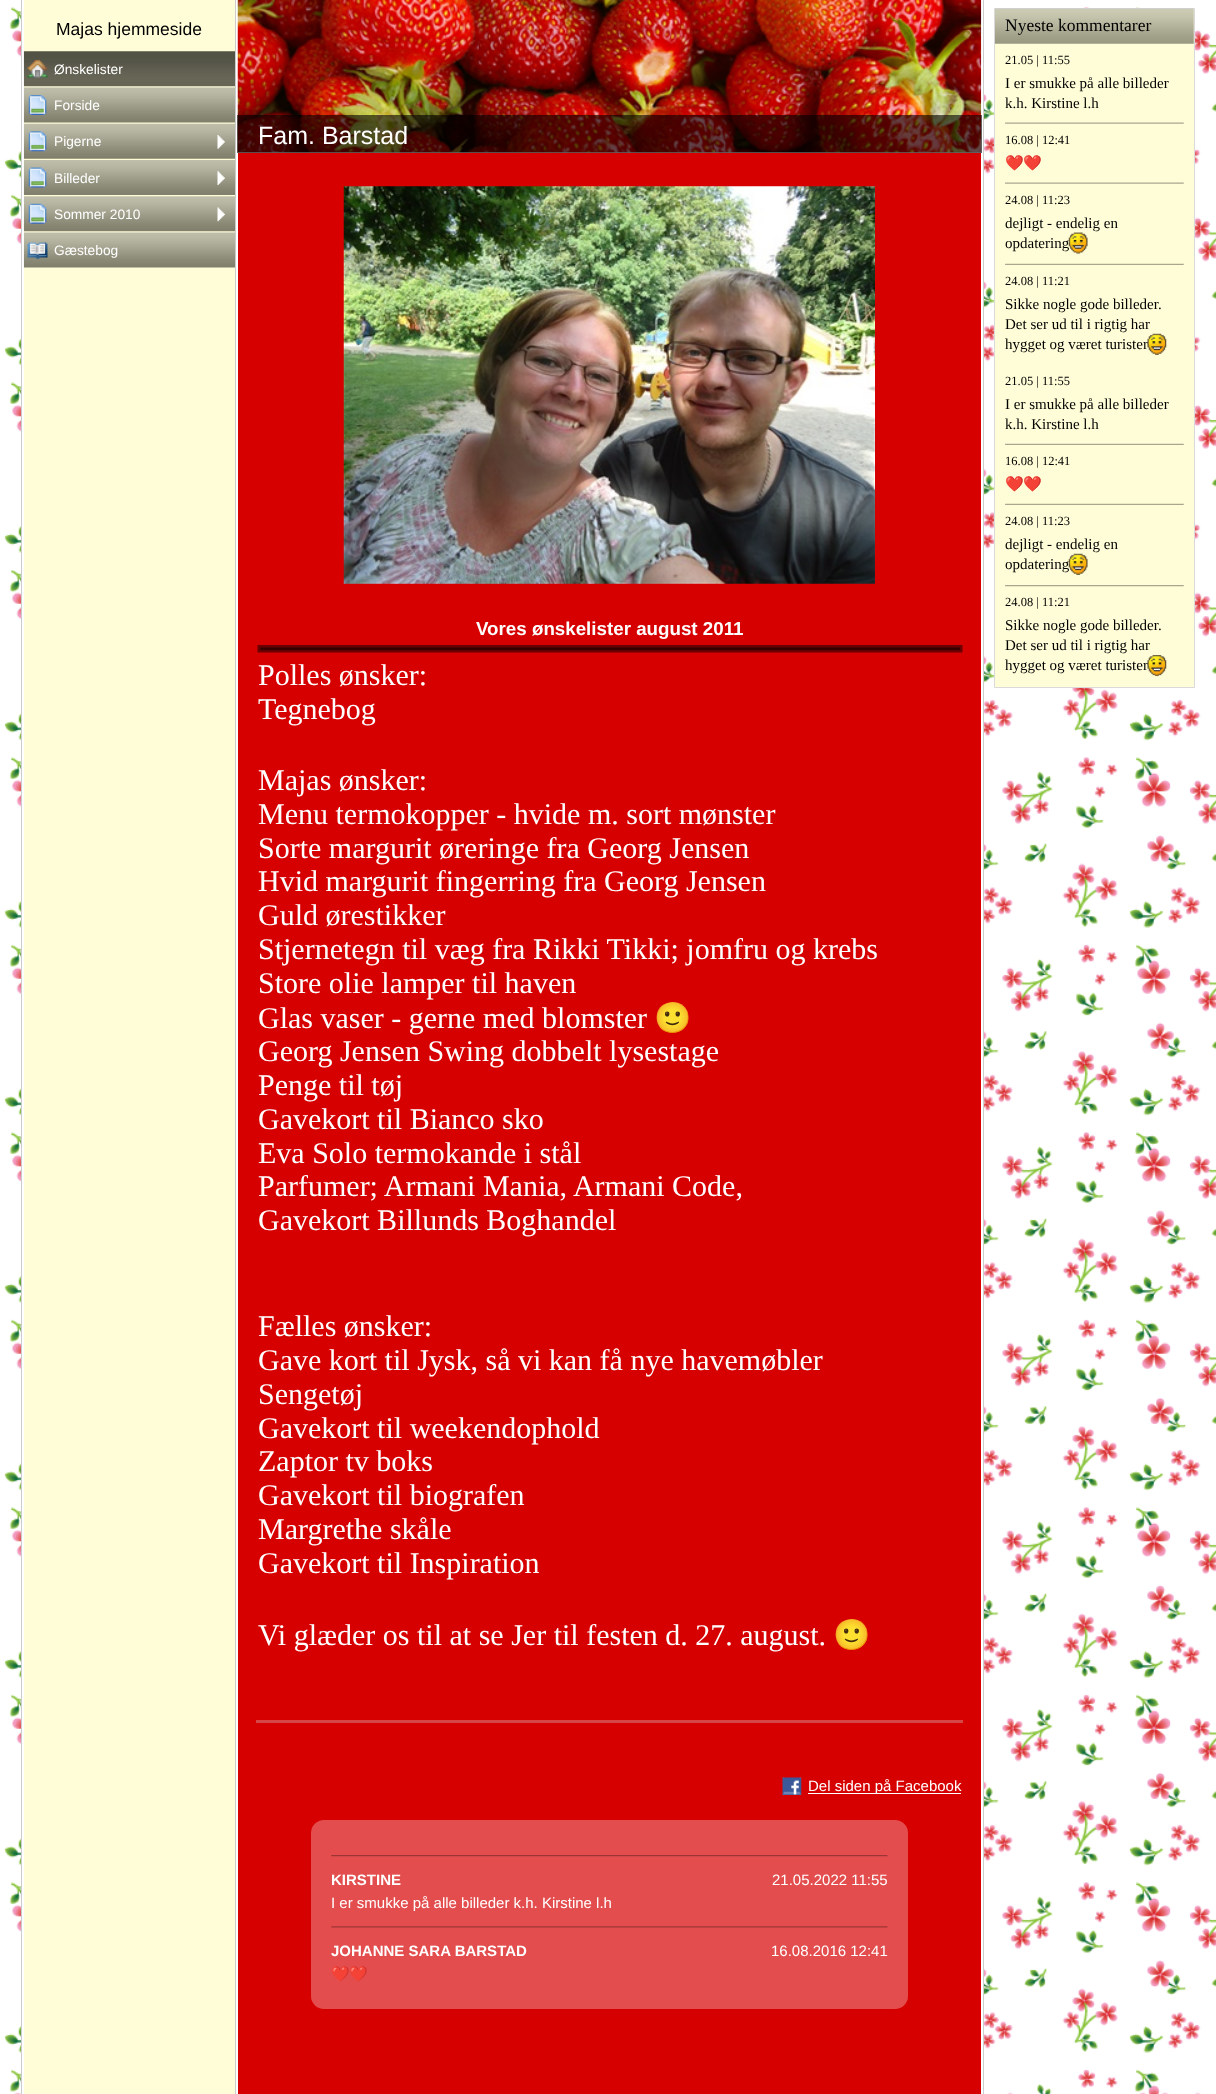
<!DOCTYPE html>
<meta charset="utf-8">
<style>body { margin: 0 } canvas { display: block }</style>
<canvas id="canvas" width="1216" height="2094"></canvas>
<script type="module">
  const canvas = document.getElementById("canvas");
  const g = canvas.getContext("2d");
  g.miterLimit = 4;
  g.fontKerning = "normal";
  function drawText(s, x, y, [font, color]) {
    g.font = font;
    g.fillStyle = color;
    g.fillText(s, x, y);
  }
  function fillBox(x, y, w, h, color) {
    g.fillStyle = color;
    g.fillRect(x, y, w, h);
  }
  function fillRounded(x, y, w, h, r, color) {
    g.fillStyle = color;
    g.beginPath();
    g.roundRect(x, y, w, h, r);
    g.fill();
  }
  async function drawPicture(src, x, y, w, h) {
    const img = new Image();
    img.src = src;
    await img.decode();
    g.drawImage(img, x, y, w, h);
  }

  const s1 = ["17.5px Liberation Sans", "#000000"];
  const s2 = ["13.75px Liberation Sans", "#FFFFFF"];
  const s3 = ["25px Liberation Sans", "#FFFFFF"];
  const s4 = ["bold 18.75px Liberation Sans", "#FFFFFF"];
  const s5 = ["30px Liberation Serif", "#FFFFFF"];
  const s6 = ["30px Noto Color Emoji", "#FFFFFF"];
  const s7 = ["15px Liberation Sans", "#FFFFFF"];
  const s8 = ["bold 15px Liberation Sans", "#FFFFFF"];
  const s9 = ["15px Noto Color Emoji", "#FFFFFF"];
  const s10 = ["17.5px Liberation Serif", "#000000"];
  const s11 = ["12.5px Liberation Serif", "#000000"];
  const s12 = ["15px Liberation Serif", "#000000"];
  const s13 = ["15px Noto Color Emoji", "#000000"];

  fillBox(0, 0, 1216, 2094, "#FFFFFF");
  await drawPicture("pic1.png", 4, 7, 1212, 2087);
  fillBox(22, 7, 961, 2087, "#FFFFFF");
  fillBox(21, 0, 1, 2094, "#CCCCCC");
  fillBox(24, 0, 211, 2094, "#FFFDD7");
  drawText("Majas hjemmeside", 56, 35, s1);
  await drawPicture("pic2.png", 23, 51, 212, 36);
  await drawPicture("pic3.png", 27, 59, 21, 19);
  drawText("Ønskelister", 54, 74, s2);
  await drawPicture("pic4.png", 23, 87, 212, 36);
  await drawPicture("pic5.png", 28, 95, 19, 20);
  drawText("Forside", 54, 110, s2);
  await drawPicture("pic6.png", 23, 123, 212, 36);
  await drawPicture("pic7.png", 28, 131, 19, 21);
  await drawPicture("pic8.png", 217, 135, 8, 14);
  drawText("Pigerne", 54, 146, s2);
  await drawPicture("pic9.png", 23, 160, 212, 35);
  await drawPicture("pic10.png", 28, 167, 19, 21);
  await drawPicture("pic11.png", 217, 171, 8, 14);
  drawText("Billeder", 54, 183, s2);
  await drawPicture("pic12.png", 23, 196, 212, 36);
  await drawPicture("pic13.png", 28, 203, 19, 21);
  await drawPicture("pic14.png", 217, 207, 8, 15);
  drawText("Sommer 2010", 54, 219, s2);
  await drawPicture("pic4.png", 23, 232, 212, 36);
  await drawPicture("pic15.png", 27, 242, 21, 17);
  drawText("Gæstebog", 54, 255, s2);
  fillBox(235, 0, 1, 2094, "#CCCCCC");
  fillBox(238, 153, 743, 1941, "#D70000");
  await drawPicture("pic16.png", 237, 0, 745, 153);
  fillBox(237, 115, 745, 38, "rgba(0, 0, 0, 0.6)");
  drawText("Fam. Barstad", 258, 144, s3);
  await drawPicture("pic17.png", 343, 186, 532, 398);
  drawText("Vores ønskelister august 2011", 476, 635, s4);
  await drawPicture("pic18.png", 257, 645, 706, 8);
  drawText("Polles ønsker:", 258, 685, s5);
  drawText("Tegnebog", 258, 719, s5);
  drawText("Majas ønsker:", 258, 790, s5);
  drawText("Menu termokopper - hvide m. sort mønster", 258, 824, s5);
  drawText("Sorte margurit øreringe fra Georg Jensen", 258, 858, s5);
  drawText("Hvid margurit fingerring fra Georg Jensen", 258, 891, s5);
  drawText("Guld ørestikker", 258, 925, s5);
  drawText("Stjernetegn til væg fra Rikki Tikki; jomfru og krebs", 258, 959, s5);
  drawText("Store olie lamper til haven", 258, 993, s5);
  drawText("Glas vaser - gerne med blomster", 258, 1028, s5);
  drawText("🙂", 654, 1028, s6);
  drawText("Georg Jensen Swing dobbelt lysestage", 258, 1061, s5);
  drawText("Penge til tøj", 258, 1095, s5);
  drawText("Gavekort til Bianco sko", 258, 1129, s5);
  drawText("Eva Solo termokande i stål", 258, 1163, s5);
  drawText("Parfumer; Armani Mania, Armani Code,", 258, 1196, s5);
  drawText("Gavekort Billunds Boghandel", 258, 1230, s5);
  drawText("Fælles ønsker:", 258, 1336, s5);
  drawText("Gave kort til Jysk, så vi kan få nye havemøbler", 258, 1370, s5);
  drawText("Sengetøj", 258, 1404, s5);
  drawText("Gavekort til weekendophold", 258, 1438, s5);
  drawText("Zaptor tv boks", 258, 1471, s5);
  drawText("Gavekort til biografen", 258, 1505, s5);
  drawText("Margrethe skåle", 258, 1539, s5);
  drawText("Gavekort til Inspiration", 258, 1573, s5);
  drawText("Vi glæder os til at se Jer til festen d. 27. august.", 258, 1645, s5);
  drawText("🙂", 833, 1645, s6);
  fillBox(256, 1720, 707, 3, "#D54747");
  await drawPicture("pic19.png", 782, 1777, 20, 18);
  fillBox(808, 1793, 153, 1, "#FFFFFF");
  drawText("Del siden på Facebook", 808, 1791, s7);
  fillRounded(311, 1820, 597, 189, 13, "#E34D4D");
  await drawPicture("pic20.png", 331, 1855, 557, 2);
  drawText("KIRSTINE", 331, 1885, s8);
  drawText("21.05.2022 11:55", 772, 1885, s7);
  drawText("I er smukke på alle billeder k.h. Kirstine l.h", 331, 1908, s7);
  await drawPicture("pic21.png", 331, 1926, 557, 2);
  drawText("JOHANNE SARA BARSTAD", 331, 1956, s8);
  drawText("16.08.2016 12:41", 771, 1956, s7);
  drawText("❤️❤️", 331, 1979, s9);
  fillBox(983, 0, 1, 2094, "#CCCCCC");
  g.fillStyle = "#FFFDD7";
  g.beginPath();
  g.rect(994.5, 8.5, 200, 679);
  g.fill();
  g.strokeStyle = "#DADADA";
  g.stroke();
  await drawPicture("pic22.png", 995, 8, 199, 36);
  drawText("Nyeste kommentarer", 1005, 31, s10);
  drawText("21.05 | 11:55", 1005, 64, s11);
  drawText("I er smukke på alle billeder", 1005, 88, s12);
  drawText("k.h. Kirstine l.h", 1005, 108, s12);
  await drawPicture("pic23.png", 1005, 122, 179, 2);
  drawText("16.08 | 12:41", 1005, 144, s11);
  drawText("❤️❤️", 1005, 168, s13);
  await drawPicture("pic23.png", 1005, 182, 179, 2);
  drawText("24.08 | 11:23", 1005, 204, s11);
  drawText("dejligt - endelig en", 1005, 228, s12);
  drawText("opdatering", 1005, 248, s12);
  await drawPicture("pic24.png", 1068, 232, 20, 22);
  await drawPicture("pic25.png", 1005, 263, 179, 2);
  drawText("24.08 | 11:21", 1005, 285, s11);
  drawText("Sikke nogle gode billeder.", 1005, 309, s12);
  drawText("Det ser ud til i rigtig har", 1005, 329, s12);
  drawText("hygget og været turister", 1005, 349, s12);
  await drawPicture("pic26.png", 1147, 333, 20, 22);
  drawText("21.05 | 11:55", 1005, 385, s11);
  drawText("I er smukke på alle billeder", 1005, 409, s12);
  drawText("k.h. Kirstine l.h", 1005, 429, s12);
  await drawPicture("pic25.png", 1005, 443, 179, 2);
  drawText("16.08 | 12:41", 1005, 465, s11);
  drawText("❤️❤️", 1005, 489, s13);
  await drawPicture("pic25.png", 1005, 503, 179, 2);
  drawText("24.08 | 11:23", 1005, 525, s11);
  drawText("dejligt - endelig en", 1005, 549, s12);
  drawText("opdatering", 1005, 569, s12);
  await drawPicture("pic27.png", 1068, 553, 20, 22);
  await drawPicture("pic28.png", 1005, 585, 179, 2);
  drawText("24.08 | 11:21", 1005, 606, s11);
  drawText("Sikke nogle gode billeder.", 1005, 630, s12);
  drawText("Det ser ud til i rigtig har", 1005, 650, s12);
  drawText("hygget og været turister", 1005, 670, s12);
  await drawPicture("pic29.png", 1147, 655, 20, 22);
</script>
